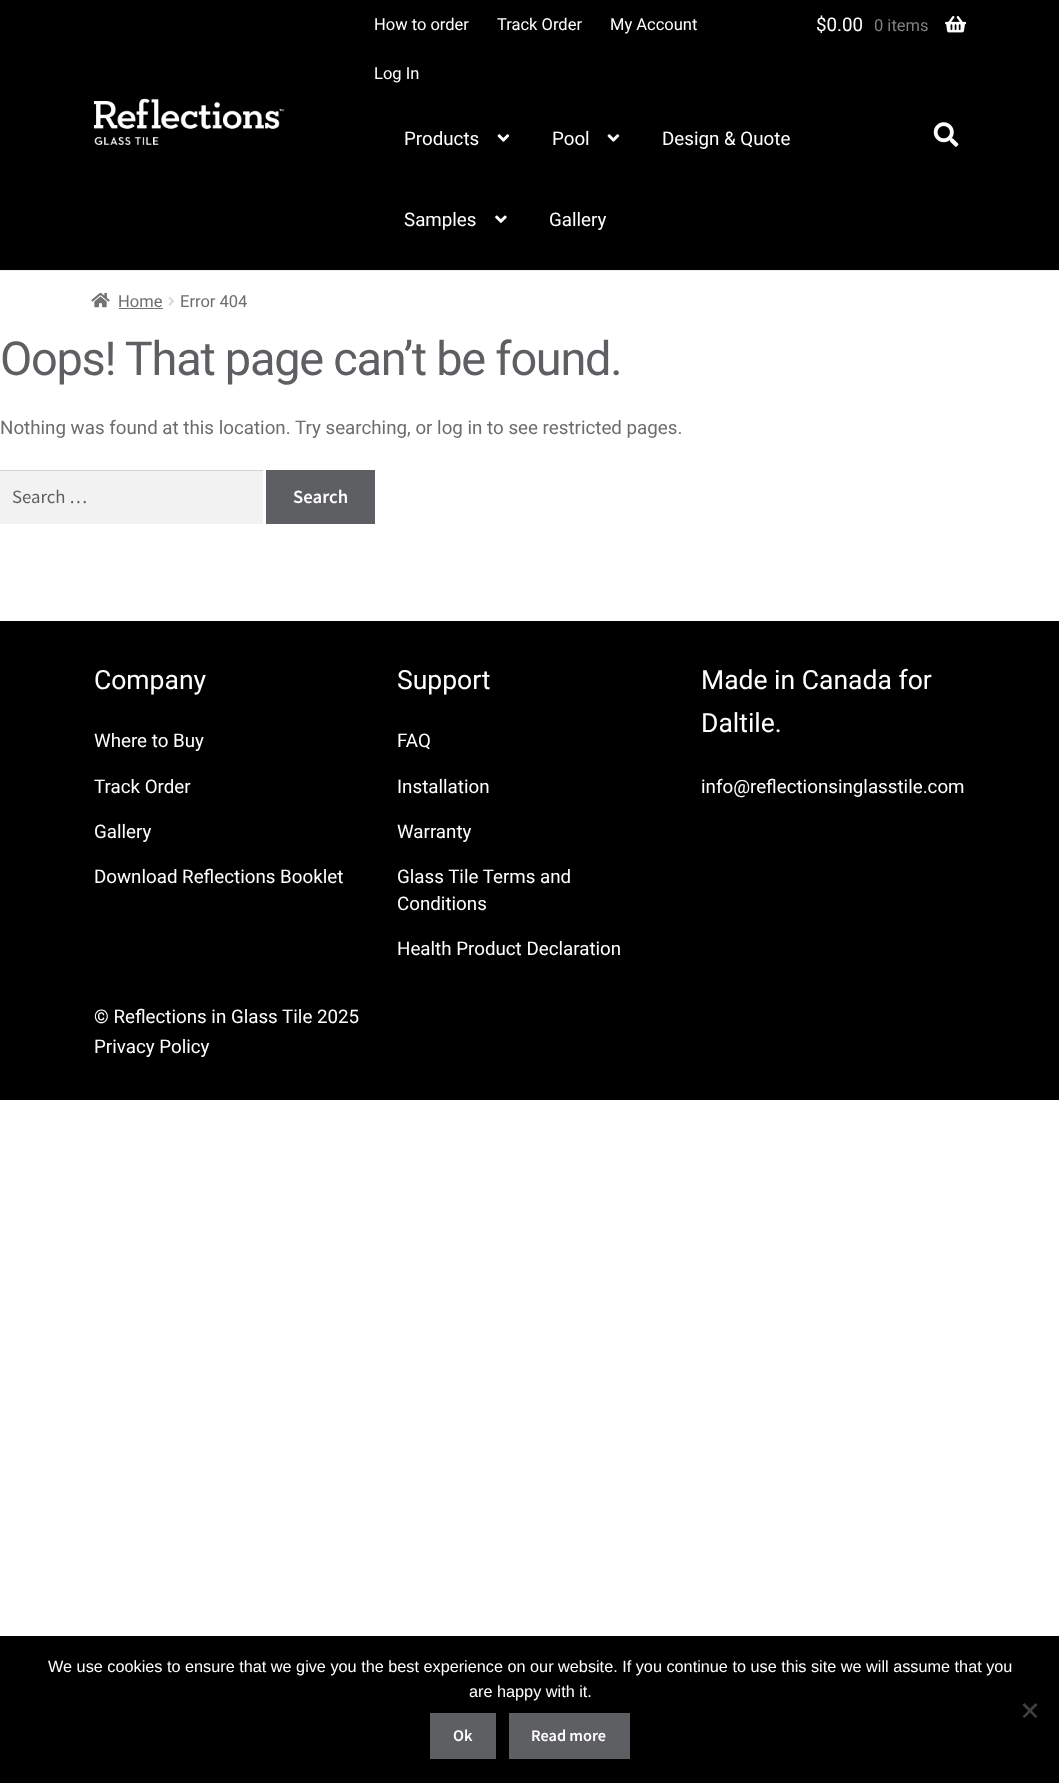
<!DOCTYPE html>
<meta charset="utf-8">
<style>body { margin: 0 } canvas { display: block }</style>
<canvas id="canvas" width="1059" height="1783"></canvas>
<script type="module">
  const canvas = document.getElementById("canvas");
  const g = canvas.getContext("2d");
  g.miterLimit = 4;
  g.fontKerning = "normal";
  function drawText(s, x, y, [font, color]) {
    g.font = font;
    g.fillStyle = color;
    g.fillText(s, x, y);
  }
  function fillBox(x, y, w, h, color) {
    g.fillStyle = color;
    g.fillRect(x, y, w, h);
  }
  async function drawPicture(src, x, y, w, h) {
    const img = new Image();
    img.src = src;
    await img.decode();
    g.drawImage(img, x, y, w, h);
  }

  const s1 = ["16.5px Roboto", "#FFFFFF"];
  const s2 = ["18.75px Roboto", "#FFFFFF"];
  const s3 = ["16.5px Roboto", "#808080"];
  const s4 = ["16.5px Roboto", "#6D6D6D"];
  const s5 = ["46.9px Roboto", "#5E5F62"];
  const s6 = ["18.75px Roboto", "#6D6D6D"];
  const s7 = ["18.75px Source Sans Pro", "#5E5F62"];
  const s8 = ["600 18.75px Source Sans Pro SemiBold", "#FFFFFF"];
  const s9 = ["26.5px Roboto", "#FFFFFF"];
  const s10 = ["16.25px Liberation Sans", "#FFFFFF"];
  const s11 = ["600 16.25px Source Sans Pro SemiBold", "#FFFFFF"];

  fillBox(0, 0, 1059, 1783, "#FFFFFF");
  fillBox(0, 0, 1059, 270, "#000000");
  drawText("How to order", 374, 30, s1);
  drawText("Track Order", 497, 30, s1);
  drawText("My Account", 610, 30, s1);
  drawText("Log In", 374, 79, s1);
  drawText("$0.00", 816, 31, s2);
  drawText("0 items", 874, 31, s3);
  await drawPicture("pic1.png", 945, 16, 22, 17);
  await drawPicture("pic2.png", 93, 98, 191, 47);
  drawText("Products", 404, 145, s2);
  await drawPicture("pic3.png", 497, 134, 13, 8);
  drawText("Pool", 552, 145, s2);
  await drawPicture("pic3.png", 607, 134, 13, 8);
  drawText("Design & Quote", 662, 145, s2);
  drawText("Samples", 404, 226, s2);
  await drawPicture("pic4.png", 495, 215, 12, 8);
  drawText("Gallery", 549, 226, s2);
  await drawPicture("pic5.png", 933, 122, 26, 25);
  fillBox(0, 270, 1059, 1, "#EFEFEF");
  await drawPicture("pic6.png", 91, 292, 19, 16);
  drawText("Home", 118, 307, s4);
  fillBox(119, 308, 44, 1, "#727272");
  await drawPicture("pic7.png", 168, 296, 7, 10);
  drawText("Error 404", 180, 307, s4);
  g.letterSpacing = "-1.25px";
  drawText("Oops! That page can’t be found.", 0, 375, s5);
  g.letterSpacing = "0px";
  drawText("Nothing was found at this location. Try searching, or log in to see restricted pages.", 0, 434, s6);
  fillBox(0, 471, 263, 53, "#F2F2F2");
  fillBox(0, 470, 263, 1, "#D4D4D4");
  drawText("Search …", 12, 503, s7);
  fillBox(266, 470, 109, 54, "#5E5F62");
  drawText("Search", 293, 503, s8);
  fillBox(0, 621, 1059, 479, "#000000");
  drawText("Company", 94, 689, s9);
  drawText("Where to Buy", 94, 747, s2);
  drawText("Track Order", 94, 793, s2);
  drawText("Gallery", 94, 838, s2);
  drawText("Download Reflections Booklet", 94, 883, s2);
  drawText("Support", 397, 689, s9);
  drawText("FAQ", 397, 747, s2);
  drawText("Installation", 397, 793, s2);
  drawText("Warranty", 397, 838, s2);
  drawText("Glass Tile Terms and", 397, 883, s2);
  drawText("Conditions", 397, 910, s2);
  drawText("Health Product Declaration", 397, 955, s2);
  drawText("Made in Canada for", 701, 689, s9);
  drawText("Daltile.", 701, 732, s9);
  drawText("info@reflectionsinglasstile.com", 701, 793, s2);
  drawText("© Reflections in Glass Tile 2025", 94, 1023, s2);
  drawText("Privacy Policy", 94, 1053, s2);
  fillBox(0, 1636, 1059, 147, "#000000");
  drawText("We use cookies to ensure that we give you the best experience on our website. If you continue to use this site we will assume that you", 48, 1672, s10);
  drawText("are happy with it.", 469, 1697, s10);
  g.fillStyle = "#404040";
  g.beginPath();
  g.moveTo(1035.5, 1703);
  g.lineTo(1037.5, 1705);
  g.lineTo(1024.5, 1718);
  g.lineTo(1022.5, 1716.5);
  g.closePath();
  g.fill();
  g.beginPath();
  g.moveTo(1022.5, 1705);
  g.lineTo(1024.5, 1703);
  g.lineTo(1037.5, 1716.5);
  g.lineTo(1035.5, 1718);
  g.closePath();
  g.fill();
  fillBox(430, 1713, 66, 46, "#5E5F62");
  drawText("Ok", 453, 1741, s11);
  fillBox(509, 1713, 121, 46, "#5E5F62");
  drawText("Read more", 531, 1741, s11);
</script>
